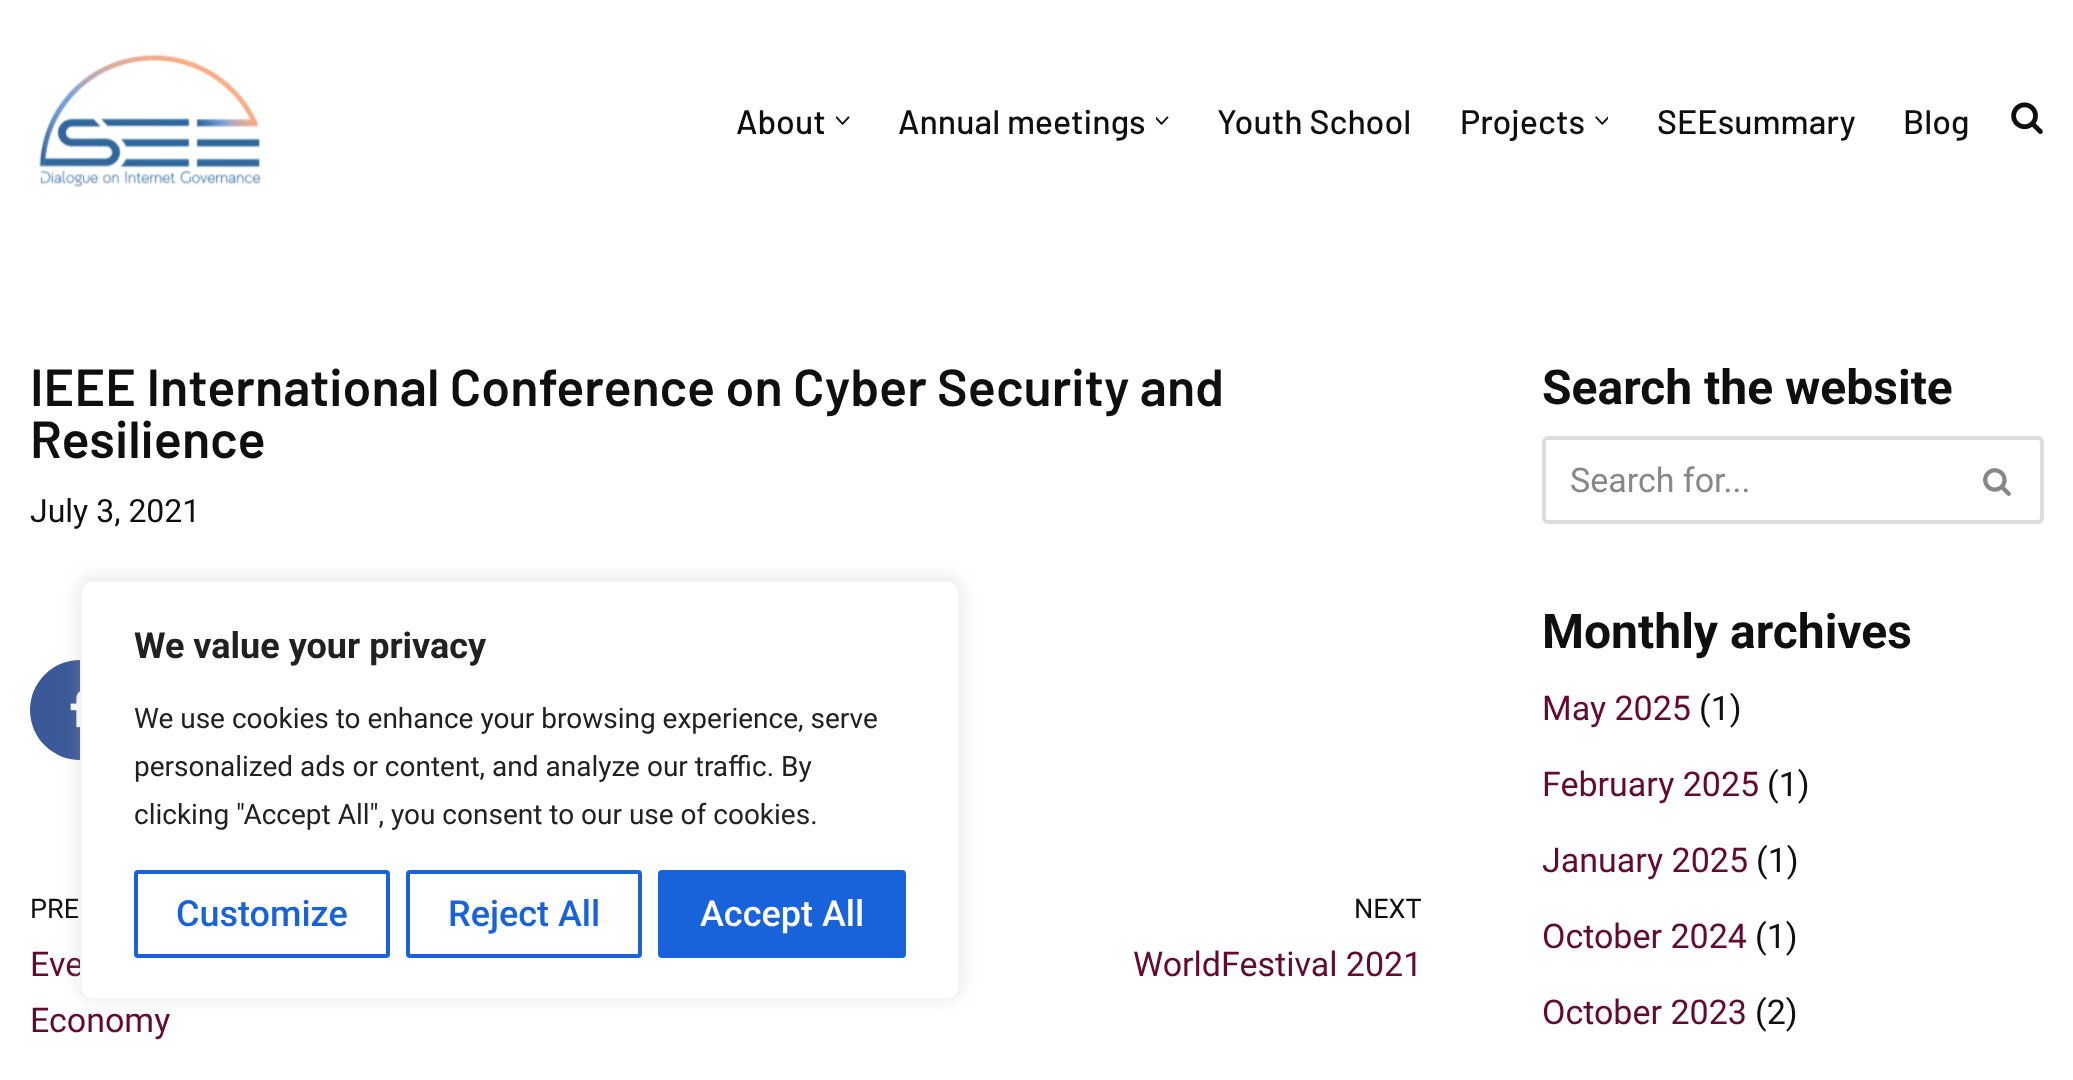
<!DOCTYPE html>
<meta charset="utf-8">
<style>body { margin: 0 } canvas { display: block }</style>
<canvas id="canvas" width="2073" height="1080"></canvas>
<script type="module">
  const canvas = document.getElementById("canvas");
  const g = canvas.getContext("2d");
  g.miterLimit = 4;
  g.fontKerning = "normal";
  function drawText(s, x, y, [font, color]) {
    g.font = font;
    g.fillStyle = color;
    g.fillText(s, x, y);
  }
  function fillBox(x, y, w, h, color) {
    g.fillStyle = color;
    g.fillRect(x, y, w, h);
  }
  async function drawPicture(src, x, y, w, h) {
    const img = new Image();
    img.src = src;
    await img.decode();
    g.drawImage(img, x, y, w, h);
  }

  const s1 = ["500 34px Barlow", "#0F0F0F"];
  const s2 = ["600 52px Barlow", "#0F0F0F"];
  const s3 = ["32px Roboto", "#0F0F0F"];
  const s4 = ["27px Roboto", "#0F0F0F"];
  const s5 = ["34px Roboto", "#640A32"];
  const s6 = ["bold 48px Roboto", "#0F0F0F"];
  const s7 = ["34px Roboto", "#878787"];
  const s8 = ["34px Roboto", "#0F0F0F"];
  const s9 = ["bold 36px Roboto", "#212121"];
  const s10 = ["28px Roboto", "#212121"];
  const s11 = ["500 36px Roboto", "#1863DC"];
  const s12 = ["500 36px Roboto", "#FFFFFF"];

  fillBox(0, 0, 2073, 1080, "#FFFFFF");
  await drawPicture("pic1.png", 39, 54, 222, 134);
  drawText("About", 736, 134, s1);
  await drawPicture("pic2.png", 836, 116, 14, 9);
  drawText("Annual meetings", 898, 134, s1);
  await drawPicture("pic3.png", 1156, 116, 13, 9);
  drawText("Youth School", 1217, 134, s1);
  drawText("Projects", 1460, 134, s1);
  await drawPicture("pic4.png", 1595, 116, 13, 9);
  drawText("SEEsummary", 1657, 134, s1);
  drawText("Blog", 1903, 134, s1);
  await drawPicture("pic5.png", 2011, 102, 32, 32);
  drawText("IEEE International Conference on Cyber Security and", 30, 406, s2);
  drawText("Resilience", 30, 458, s2);
  drawText("July 3, 2021", 30, 522, s3);
  g.fillStyle = "#3B5998";
  g.beginPath();
  g.arc(80, 710, 50, 0, Math.PI * 2);
  g.fill();
  await drawPicture("pic6.png", 70, 691, 10, 37);
  drawText("PRE", 30, 918, s4);
  drawText("Eve", 30, 976, s5);
  drawText("Economy", 30, 1032, s5);
  drawText("NEXT", 1354, 918, s4);
  drawText("WorldFestival 2021", 1133, 976, s5);
  drawText("Search the website", 1542, 404, s6);
  g.fillStyle = "#DDDDDD";
  g.beginPath();
  g.moveTo(1548, 436);
  g.lineTo(1954, 436);
  g.lineTo(1954, 524);
  g.lineTo(1548, 524);
  g.bezierCurveTo(1545, 524, 1542, 521, 1542, 518);
  g.lineTo(1542, 442);
  g.bezierCurveTo(1542, 439, 1545, 436, 1548, 436);
  g.closePath();
  g.moveTo(1548, 440);
  g.lineTo(1954, 440);
  g.lineTo(1954, 520);
  g.lineTo(1548, 520);
  g.bezierCurveTo(1547, 520, 1546, 519, 1546, 518);
  g.lineTo(1546, 442);
  g.bezierCurveTo(1546, 441, 1547, 440, 1548, 440);
  g.closePath();
  g.fill("evenodd");
  drawText("Search for...", 1570, 492, s7);
  g.fillStyle = "#DDDDDD";
  g.beginPath();
  g.moveTo(1954, 436);
  g.lineTo(2038, 436);
  g.bezierCurveTo(2041, 436, 2044, 439, 2044, 442);
  g.lineTo(2044, 518);
  g.bezierCurveTo(2044, 521, 2041, 524, 2038, 524);
  g.lineTo(1954, 524);
  g.closePath();
  g.moveTo(1954, 440);
  g.lineTo(2038, 440);
  g.bezierCurveTo(2039, 440, 2040, 441, 2040, 442);
  g.lineTo(2040, 518);
  g.bezierCurveTo(2040, 519, 2039, 520, 2038, 520);
  g.lineTo(1954, 520);
  g.closePath();
  g.fill("evenodd");
  await drawPicture("pic7.png", 1983, 468, 28, 28);
  drawText("Monthly archives", 1542, 648, s6);
  drawText("May 2025", 1542, 720, s5);
  drawText("(1)", 1699, 720, s8);
  drawText("February 2025", 1542, 796, s5);
  drawText("(1)", 1767, 796, s8);
  drawText("January 2025", 1542, 872, s5);
  drawText("(1)", 1756, 872, s8);
  drawText("October 2024", 1542, 948, s5);
  drawText("(1)", 1755, 948, s8);
  drawText("October 2023", 1542, 1024, s5);
  drawText("(2)", 1755, 1024, s8);
  g.fillStyle = "rgba(172, 171, 171, 0.3)";
  g.filter = "blur(10px)";
  g.beginPath();
  g.roundRect(80, 578, 880, 420, 12);
  g.fill();
  g.filter = "none";
  g.fillStyle = "#FFFFFF";
  g.beginPath();
  g.roundRect(81, 581, 878, 418, 11);
  g.fill();
  g.strokeStyle = "#F4F4F4";
  g.lineWidth = 2;
  g.stroke();
  drawText("We value your privacy", 134, 658, s9);
  drawText("We use cookies to enhance your browsing experience, serve", 134, 728, s10);
  drawText("personalized ads or content, and analyze our traffic. By", 134, 776, s10);
  drawText("clicking \"Accept All\", you consent to our use of cookies.", 134, 824, s10);
  g.beginPath();
  g.roundRect(136, 872, 252, 84, 2);
  g.strokeStyle = "#1863DC";
  g.lineWidth = 4;
  g.stroke();
  drawText("Customize", 176, 926, s11);
  g.beginPath();
  g.roundRect(408, 872, 232, 84, 2);
  g.stroke();
  drawText("Reject All", 448, 926, s11);
  g.beginPath();
  g.roundRect(660, 872, 244, 84, 2);
  g.fill();
  g.stroke();
  drawText("Accept All", 700, 926, s12);
</script>
